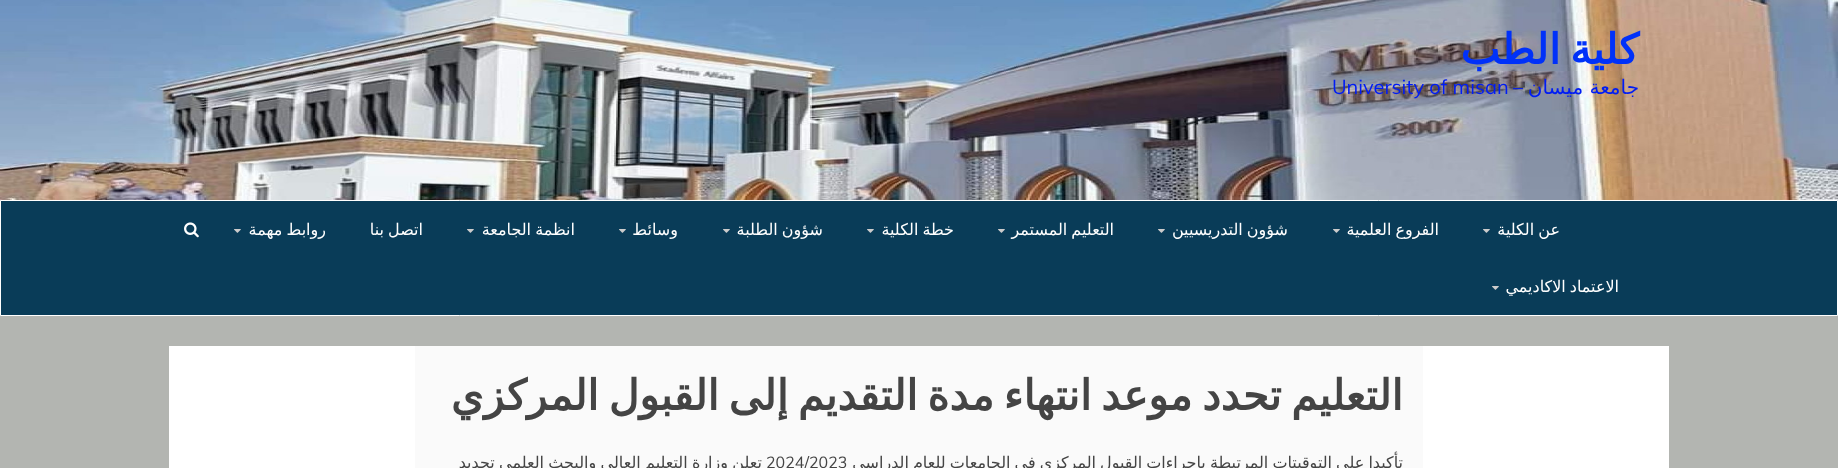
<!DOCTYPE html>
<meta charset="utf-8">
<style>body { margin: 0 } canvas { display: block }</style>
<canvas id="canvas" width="1838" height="468"></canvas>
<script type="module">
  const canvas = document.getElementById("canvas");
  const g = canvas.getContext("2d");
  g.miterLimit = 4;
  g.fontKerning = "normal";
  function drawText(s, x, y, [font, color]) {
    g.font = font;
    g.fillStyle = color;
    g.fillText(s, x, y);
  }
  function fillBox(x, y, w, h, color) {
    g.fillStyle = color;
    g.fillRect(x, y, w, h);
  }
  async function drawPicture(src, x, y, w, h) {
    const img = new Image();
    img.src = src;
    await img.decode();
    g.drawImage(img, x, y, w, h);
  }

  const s1 = ["bold 42px DejaVu Sans", "#0031F9"];
  const s2 = ["20px DejaVu Sans", "#001CF4"];
  const s3 = ["20px Muli", "#001CF4"];
  const s4 = ["16px DejaVu Sans", "#FFFFFF"];
  const s5 = ["bold 42px DejaVu Sans", "#444444"];
  const s6 = ["16px DejaVu Sans", "#444444"];
  const s7 = ["16px Muli", "#444444"];

  fillBox(0, 0, 1838, 468, "#B3B5B1");
  await drawPicture("pic1.png", 0, 0, 1838, 200);
  g.wordSpacing = "-3.75px";
  g.direction = "rtl";
  drawText("كلية الطب", 1639, 64, s1);
  g.wordSpacing = "0px";
  drawText("جامعة ميسان", 1639, 94, s2);
  drawText("–", 1523, 94, s3);
  g.direction = "ltr";
  drawText("University of misan", 1332, 94, s3);
  g.fillStyle = "#093C58";
  g.beginPath();
  g.rect(0.5, 200.5, 1837, 115);
  g.fill();
  g.strokeStyle = "#FFFFFF";
  g.stroke();
  g.wordSpacing = "-1px";
  g.direction = "rtl";
  drawText("عن الكلية", 1560, 235, s4);
  await drawPicture("pic2.png", 1483, 229, 7, 4);
  drawText("الفروع العلمية", 1439, 235, s4);
  await drawPicture("pic2.png", 1333, 229, 7, 4);
  drawText("شؤون التدريسيين", 1288, 235, s4);
  await drawPicture("pic2.png", 1158, 229, 7, 4);
  drawText("التعليم المستمر", 1114, 235, s4);
  await drawPicture("pic2.png", 998, 229, 7, 4);
  drawText("خطة الكلية", 954, 235, s4);
  await drawPicture("pic2.png", 867, 229, 7, 4);
  drawText("شؤون الطلبة", 823, 235, s4);
  await drawPicture("pic2.png", 723, 229, 7, 4);
  g.wordSpacing = "0px";
  drawText("وسائط", 678, 235, s4);
  await drawPicture("pic2.png", 619, 229, 7, 4);
  g.wordSpacing = "-1px";
  drawText("انظمة الجامعة", 575, 235, s4);
  await drawPicture("pic2.png", 467, 229, 7, 4);
  drawText("اتصل بنا", 423, 235, s4);
  drawText("روابط مهمة", 326, 235, s4);
  await drawPicture("pic2.png", 234, 229, 7, 4);
  drawText("الاعتماد الاكاديمي", 1619, 292, s4);
  await drawPicture("pic2.png", 1492, 286, 7, 4);
  await drawPicture("pic3.png", 184, 222, 15, 16);
  fillBox(169, 346, 1500, 122, "#FFFFFF");
  fillBox(415, 346, 1008, 122, "#FAFAFA");
  g.wordSpacing = "-3.75px";
  drawText("التعليم تحدد موعد انتهاء مدة التقديم إلى القبول المركزي", 1403, 410, s5);
  g.wordSpacing = "-1px";
  drawText("تأكيدا على التوقيتات المرتبطة بإجراءات القبول المركزي في الجامعات للعام الدراسي", 1403, 468, s6);
  g.wordSpacing = "-0.75px";
  drawText("تعلن وزارة التعليم العالي والبحث العلمي تحديد", 762, 468, s6);
  g.wordSpacing = "0px";
  g.direction = "ltr";
  drawText("2024/2023", 766, 468, s7);
</script>
